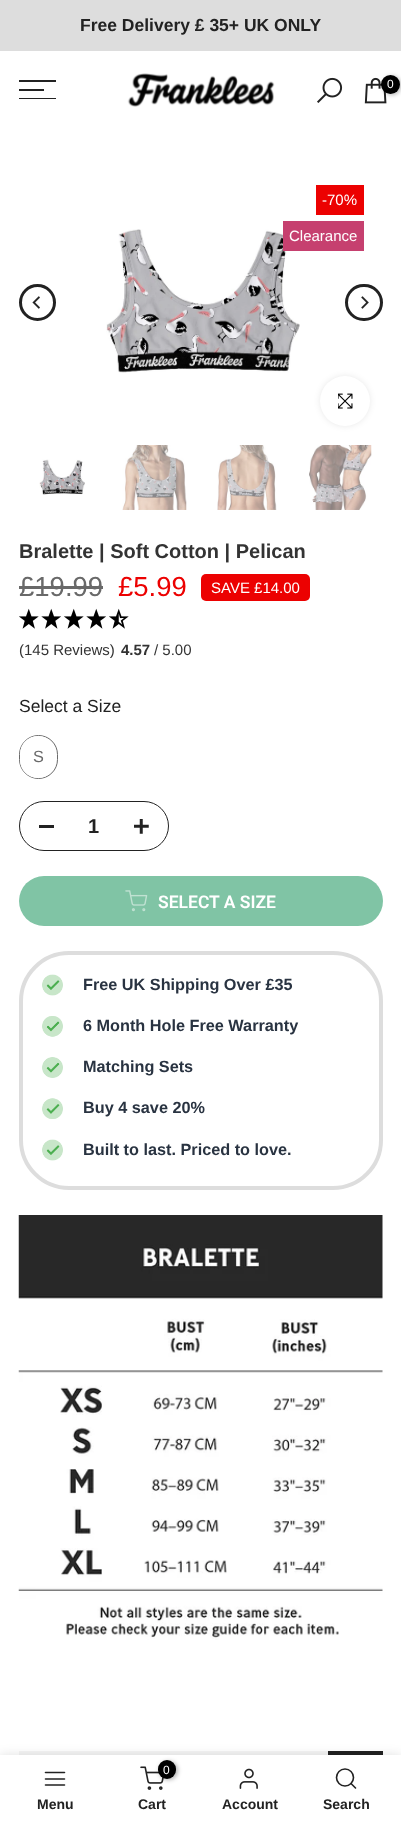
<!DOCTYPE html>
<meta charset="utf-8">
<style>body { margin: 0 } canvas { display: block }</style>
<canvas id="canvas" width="401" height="1823"></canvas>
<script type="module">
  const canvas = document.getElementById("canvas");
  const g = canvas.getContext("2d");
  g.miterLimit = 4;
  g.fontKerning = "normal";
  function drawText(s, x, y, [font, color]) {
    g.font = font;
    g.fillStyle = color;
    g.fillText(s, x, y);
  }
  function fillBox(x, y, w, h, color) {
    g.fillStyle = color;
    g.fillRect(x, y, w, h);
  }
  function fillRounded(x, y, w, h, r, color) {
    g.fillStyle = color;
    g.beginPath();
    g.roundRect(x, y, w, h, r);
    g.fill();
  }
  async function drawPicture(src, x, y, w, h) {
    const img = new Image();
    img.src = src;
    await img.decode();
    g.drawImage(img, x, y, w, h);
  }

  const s1 = ["bold 17.5px Liberation Sans", "#222222"];
  const s2 = ["12px Liberation Sans", "#FFFFFF"];
  const s3 = ["15px Liberation Sans", "#FFFFFF"];
  const s4 = ["bold 20px Liberation Sans", "#333333"];
  const s5 = ["27.5px Liberation Sans", "#696969"];
  const s6 = ["27.5px Liberation Sans", "#EC0101"];
  const s7 = ["15px Liberation Sans", "#333333"];
  const s8 = ["bold 15px Liberation Sans", "#333333"];
  const s9 = ["17.5px Liberation Sans", "#222222"];
  const s10 = ["16.25px Liberation Sans", "#696969"];
  const s11 = ["bold 20px Liberation Sans", "#222222"];
  const s12 = ["600 17.5px Roboto", "#FFFFFF"];
  const s13 = ["bold 16.25px Liberation Sans", "#293341"];
  const s14 = ["bold 14px Liberation Sans", "#222222"];

  fillBox(0, 0, 401, 1823, "#FFFFFF");
  fillBox(0, 0, 401, 51, "#DDDDDD");
  drawText("Free Delivery £ 35+ UK ONLY", 80, 31, s1);
  fillBox(19, 80, 37, 2, "#222222");
  fillBox(19, 89, 25, 2, "#222222");
  fillBox(19, 98, 37, 1, "#222222");
  await drawPicture("pic1.png", 127, 73, 148, 34);
  await drawPicture("pic2.png", 317, 77, 26, 26);
  await drawPicture("pic3.png", 364, 77, 23, 27);
  g.fillStyle = "rgba(0, 0, 0, 0.3)";
  g.filter = "blur(2px)";
  g.beginPath();
  g.roundRect(383, 76, 18, 19, 9);
  g.fill();
  g.filter = "none";
  g.fillStyle = "#000000";
  g.beginPath();
  g.arc(390.5, 84.5, 9.5, 0, Math.PI * 2);
  g.fill();
  drawText("0", 387, 88, s2);
  fillBox(316, 185, 48, 30, "#EC0101");
  drawText("-70%", 322, 205, s3);
  await drawPicture("pic5.png", 106, 229, 194, 144);
  fillBox(283, 221, 81, 30, "#C6406F");
  drawText("Clearance", 289, 241, s3);
  g.beginPath();
  g.arc(37.5, 302.5, 17, 0, Math.PI * 2);
  g.strokeStyle = "#222222";
  g.lineWidth = 3;
  g.stroke();
  await drawPicture("pic4.png", 32, 296, 8, 13);
  g.beginPath();
  g.roundRect(346.5, 285.5, 35, 34, 17);
  g.stroke();
  await drawPicture("pic6.png", 361, 296, 8, 13);
  g.fillStyle = "rgba(0, 0, 0, 0.09)";
  g.filter = "blur(3px)";
  g.beginPath();
  g.roundRect(320, 376, 50, 50, 25);
  g.fill();
  g.filter = "none";
  g.fillStyle = "#FFFFFF";
  g.beginPath();
  g.arc(345, 401, 25, 0, Math.PI * 2);
  g.fill();
  await drawPicture("pic7.png", 338, 393, 15, 16);
  await drawPicture("pic8.png", 39, 459, 46, 36);
  await drawPicture("pic9.png", 122, 445, 65, 65);
  await drawPicture("pic10.png", 217, 445, 60, 65);
  await drawPicture("pic11.png", 309, 445, 63, 65);
  drawText("Bralette | Soft Cotton | Pelican", 19, 558, s4);
  drawText("£19.99", 19, 596, s5);
  fillBox(19, 586, 84, 3, "#696969");
  drawText("£5.99", 118, 596, s6);
  fillRounded(201, 574, 109, 27, 5, "#EC0101");
  drawText("SAVE £14.00", 211, 593, s3);
  await drawPicture("pic12.png", 19, 608, 20, 21);
  await drawPicture("pic13.png", 41, 608, 20, 21);
  await drawPicture("pic12.png", 64, 608, 20, 21);
  await drawPicture("pic13.png", 86, 608, 20, 21);
  await drawPicture("pic14.png", 109, 608, 20, 21);
  drawText("(145 Reviews)", 19, 655, s7);
  drawText("4.57", 121, 655, s8);
  drawText("/ 5.00", 154, 655, s7);
  drawText("Select a Size", 19, 712, s9);
  g.beginPath();
  g.roundRect(19.5, 735.5, 38, 43, 19);
  g.strokeStyle = "#6A6A6A";
  g.lineWidth = 1;
  g.stroke();
  fillRounded(20, 736, 36, 42, 18, "#FFFFFF");
  drawText("S", 33, 762, s10);
  g.beginPath();
  g.roundRect(19.5, 801.5, 149, 49, 24.5);
  g.strokeStyle = "#222222";
  g.stroke();
  fillBox(39, 825, 15, 3, "#222222");
  drawText("1", 88, 833, s11);
  await drawPicture("pic15.png", 134, 819, 15, 15);
  fillRounded(19, 876, 364, 50, 25, "#80C4A5");
  await drawPicture("pic16.png", 125, 890, 23, 22);
  drawText("SELECT A SIZE", 158, 908, s12);
  g.beginPath();
  g.roundRect(21, 953, 360, 235, 48);
  g.strokeStyle = "#DDDDDD";
  g.lineWidth = 4;
  g.stroke();
  await drawPicture("pic17.png", 42, 974, 21, 22);
  drawText("Free UK Shipping Over £35", 83, 990, s13);
  await drawPicture("pic18.png", 42, 1016, 21, 21);
  drawText("6 Month Hole Free Warranty", 83, 1031, s13);
  await drawPicture("pic19.png", 42, 1057, 21, 21);
  drawText("Matching Sets", 83, 1072, s13);
  await drawPicture("pic20.png", 42, 1098, 21, 21);
  drawText("Buy 4 save 20%", 83, 1113, s13);
  await drawPicture("pic17.png", 42, 1139, 21, 22);
  drawText("Built to last. Priced to love.", 83, 1155, s13);
  await drawPicture("pic21.png", 18, 1215, 365, 425);
  fillBox(19, 1751, 309, 4, "#F5F5F5");
  fillBox(328, 1751, 55, 4, "#222222");
  g.fillStyle = "rgba(0, 0, 0, 0.12)";
  g.filter = "blur(5.5px)";
  g.beginPath();
  g.rect(0, 1755, 401, 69);
  g.fill();
  g.filter = "none";
  fillBox(0, 1755, 401, 68, "#FFFFFF");
  g.beginPath();
  g.moveTo(45.5, 1779);
  g.lineTo(64.5, 1779);
  g.moveTo(45.5, 1772.5);
  g.lineTo(64.5, 1772.5);
  g.moveTo(45.5, 1785);
  g.lineTo(64.5, 1785);
  g.strokeStyle = "#222222";
  g.lineWidth = 1.6;
  g.lineCap = "round";
  g.lineJoin = "round";
  g.stroke();
  drawText("Menu", 37, 1809, s14);
  await drawPicture("pic22.png", 140, 1766, 24, 24);
  g.fillStyle = "rgba(0, 0, 0, 0.3)";
  g.filter = "blur(2px)";
  g.beginPath();
  g.roundRect(159, 1761, 19, 19, 9.5);
  g.fill();
  g.filter = "none";
  fillRounded(158, 1760, 18, 19, 9, "#000000");
  drawText("0", 163, 1774, s2);
  drawText("Cart", 138, 1809, s14);
  await drawPicture("pic23.png", 239, 1768, 19, 21);
  drawText("Account", 222, 1809, s14);
  g.beginPath();
  g.arc(345, 1777.5, 8.5, 0, Math.PI * 2);
  g.stroke();
  g.beginPath();
  g.moveTo(355.5, 1788);
  g.lineTo(351, 1783.5);
  g.stroke();
  drawText("Search", 323, 1809, s14);
</script>
